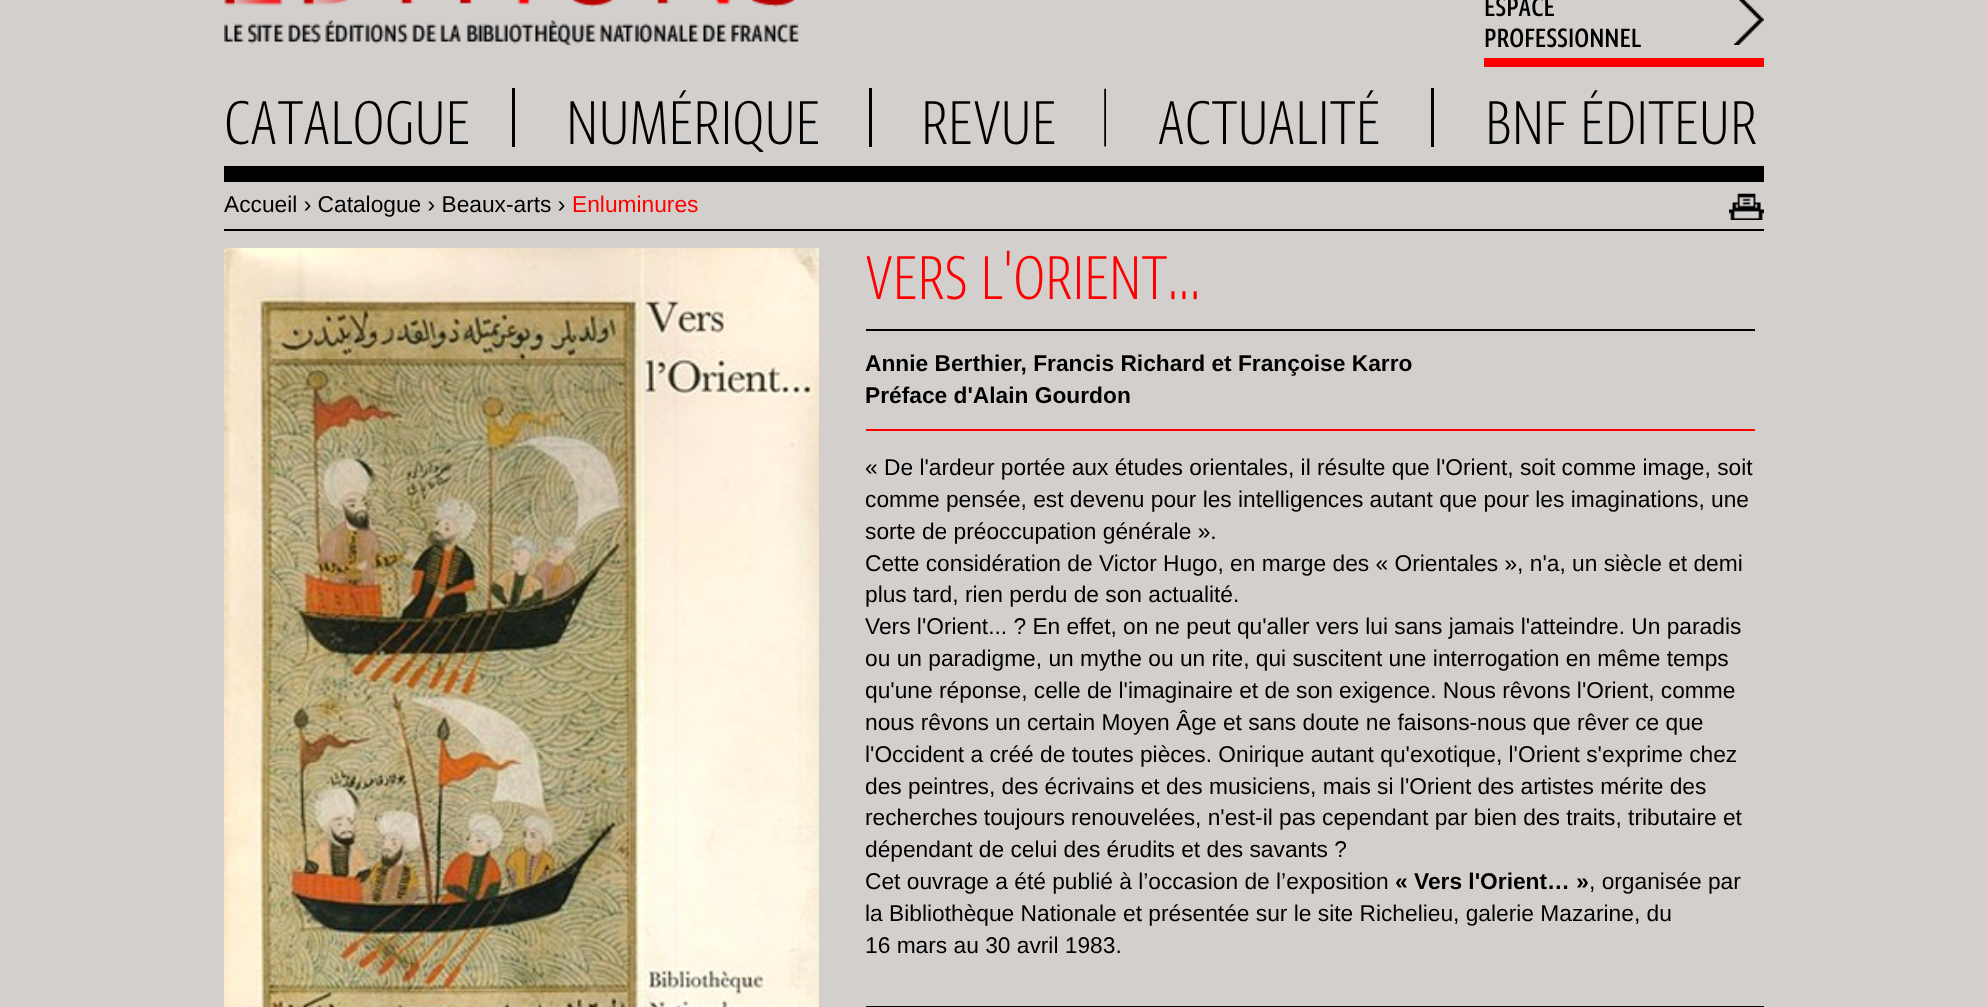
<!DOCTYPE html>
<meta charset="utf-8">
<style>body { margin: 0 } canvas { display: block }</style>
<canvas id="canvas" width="1987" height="1007"></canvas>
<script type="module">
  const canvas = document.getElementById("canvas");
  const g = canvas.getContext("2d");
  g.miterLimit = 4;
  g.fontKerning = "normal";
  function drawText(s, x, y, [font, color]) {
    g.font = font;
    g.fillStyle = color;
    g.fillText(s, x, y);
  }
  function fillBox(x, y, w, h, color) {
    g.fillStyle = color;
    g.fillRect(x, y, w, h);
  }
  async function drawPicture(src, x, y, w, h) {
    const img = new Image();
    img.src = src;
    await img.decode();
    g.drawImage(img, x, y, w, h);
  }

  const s1 = ["500 31.5px 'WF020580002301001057'", "#000000"];
  const s2 = ["200 73.5px 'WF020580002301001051'", "#000000"];
  const s3 = ["22.75px Liberation Sans", "#000000"];
  const s4 = ["22.75px Liberation Sans", "#FF0000"];
  const s5 = ["200 73.5px 'WF020580002301001051'", "#FF0000"];
  const s6 = ["bold 22.75px Liberation Sans", "#000000"];

  fillBox(0, 0, 1987, 1007, "#D2CFCD");
  await drawPicture("pic1.png", 224, 0, 575, 45);
  await drawPicture("pic2.png", 1734, 0, 30, 45);
  fillBox(1484, 58, 280, 9, "#FF0000");
  drawText("ESPACE", 1484, 16, s1);
  drawText("PROFESSIONNEL", 1484, 47, s1);
  fillBox(224, 166, 1540, 16, "#000000");
  fillBox(512, 88, 3, 59, "#000000");
  drawText("CATALOGUE", 224, 144, s2);
  fillBox(869, 88, 3, 59, "#000000");
  drawText("NUMÉRIQUE", 566, 144, s2);
  await drawPicture("pic3.png", 1104, 88, 2, 59);
  drawText("REVUE", 921, 144, s2);
  fillBox(1431, 88, 3, 59, "#000000");
  drawText("ACTUALITÉ", 1158, 144, s2);
  drawText("BNF ÉDITEUR", 1485, 144, s2);
  fillBox(224, 229, 1540, 2, "#000000");
  drawText("Accueil › Catalogue › Beaux-arts ›", 224, 212, s3);
  drawText("Enluminures", 572, 212, s4);
  await drawPicture("pic4.png", 1729, 193, 35, 27);
  await drawPicture("pic5.png", 224, 248, 595, 759);
  drawText("VERS L'ORIENT...", 865, 299, s5);
  fillBox(866, 329, 889, 2, "#000000");
  drawText("Annie Berthier, Francis Richard et Françoise Karro", 865, 371, s6);
  drawText("Préface d'Alain Gourdon", 865, 403, s6);
  fillBox(866, 429, 889, 2, "#FF0000");
  drawText("« De l'ardeur portée aux études orientales, il résulte que l'Orient, soit comme image, soit", 865, 475, s3);
  drawText("comme pensée, est devenu pour les intelligences autant que pour les imaginations, une", 865, 507, s3);
  drawText("sorte de préoccupation générale ».", 865, 539, s3);
  drawText("Cette considération de Victor Hugo, en marge des « Orientales », n'a, un siècle et demi", 865, 571, s3);
  drawText("plus tard, rien perdu de son actualité.", 865, 602, s3);
  drawText("Vers l'Orient... ? En effet, on ne peut qu'aller vers lui sans jamais l'atteindre. Un paradis", 865, 634, s3);
  drawText("ou un paradigme, un mythe ou un rite, qui suscitent une interrogation en même temps", 865, 666, s3);
  drawText("qu'une réponse, celle de l'imaginaire et de son exigence. Nous rêvons l'Orient, comme", 865, 698, s3);
  drawText("nous rêvons un certain Moyen Âge et sans doute ne faisons-nous que rêver ce que", 865, 730, s3);
  drawText("l'Occident a créé de toutes pièces. Onirique autant qu'exotique, l'Orient s'exprime chez", 865, 762, s3);
  drawText("des peintres, des écrivains et des musiciens, mais si l'Orient des artistes mérite des", 865, 794, s3);
  drawText("recherches toujours renouvelées, n'est-il pas cependant par bien des traits, tributaire et", 865, 825, s3);
  drawText("dépendant de celui des érudits et des savants ?", 865, 857, s3);
  drawText("Cet ouvrage a été publié à l’occasion de l’exposition", 865, 889, s3);
  drawText("« Vers l'Orient… »", 1395, 889, s6);
  drawText(", organisée par", 1589, 889, s3);
  drawText("la Bibliothèque Nationale et présentée sur le site Richelieu, galerie Mazarine, du", 865, 921, s3);
  drawText("16 mars au 30 avril 1983.", 865, 953, s3);
  fillBox(866, 1006, 898, 1, "#000000");
</script>
